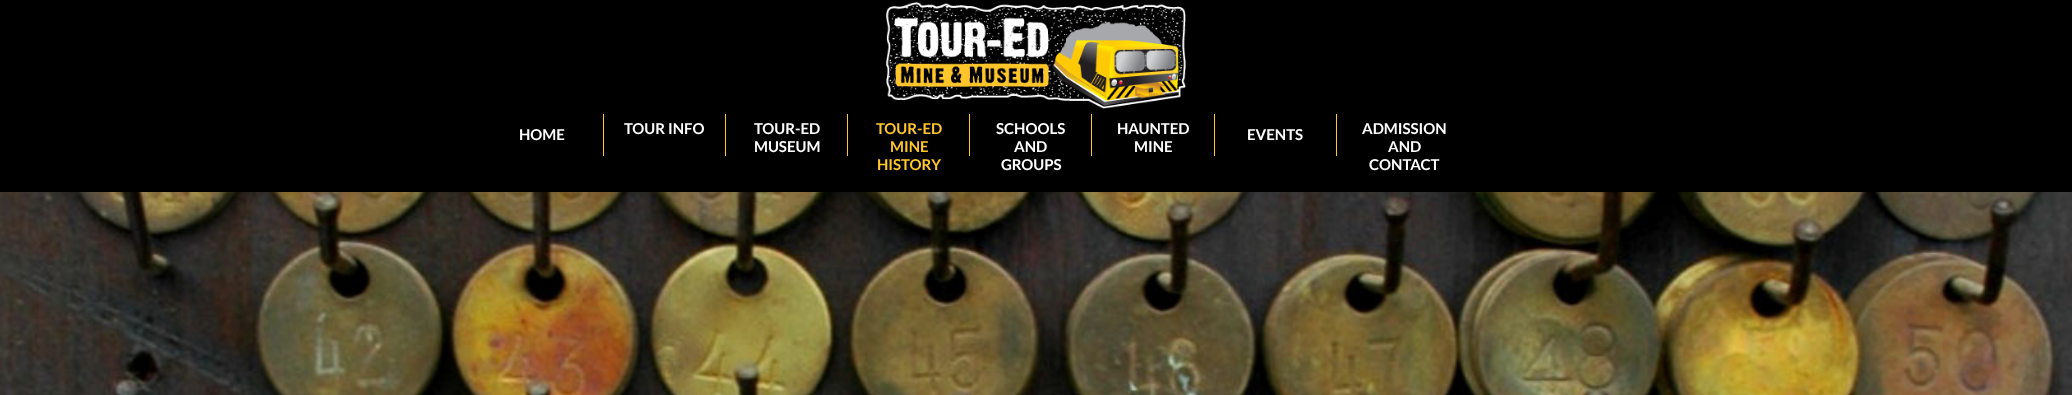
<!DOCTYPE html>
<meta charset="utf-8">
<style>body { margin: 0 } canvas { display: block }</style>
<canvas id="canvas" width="2072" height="395"></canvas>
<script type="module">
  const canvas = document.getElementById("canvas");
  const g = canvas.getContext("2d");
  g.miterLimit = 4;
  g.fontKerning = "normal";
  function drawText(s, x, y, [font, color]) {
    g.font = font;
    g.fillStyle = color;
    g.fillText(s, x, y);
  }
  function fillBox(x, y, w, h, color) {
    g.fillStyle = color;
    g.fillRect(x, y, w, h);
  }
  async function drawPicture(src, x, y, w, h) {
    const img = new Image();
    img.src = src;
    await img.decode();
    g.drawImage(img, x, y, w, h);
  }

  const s1 = ["bold 15px Lato", "#FFFFFF"];
  const s2 = ["bold 15px Lato", "#FFC72C"];

  fillBox(0, 0, 2072, 395, "#000000");
  await drawPicture("pic1.png", 886, 2, 300, 107);
  drawText("HOME", 519, 140, s1);
  fillBox(603, 114, 1, 42, "#FFC72C");
  drawText("TOUR INFO", 624, 134, s1);
  fillBox(725, 114, 1, 42, "#FFC72C");
  drawText("TOUR-ED", 754, 134, s1);
  drawText("MUSEUM", 754, 152, s1);
  fillBox(847, 114, 1, 42, "#FFC72C");
  drawText("TOUR-ED", 876, 134, s2);
  drawText("MINE", 890, 152, s2);
  drawText("HISTORY", 877, 170, s2);
  fillBox(969, 114, 1, 42, "#FFC72C");
  drawText("SCHOOLS", 996, 134, s1);
  drawText("AND", 1014, 152, s1);
  drawText("GROUPS", 1001, 170, s1);
  fillBox(1091, 114, 1, 42, "#FFC72C");
  drawText("HAUNTED", 1117, 134, s1);
  drawText("MINE", 1134, 152, s1);
  fillBox(1214, 114, 1, 42, "#FFC72C");
  drawText("EVENTS", 1247, 140, s1);
  fillBox(1336, 114, 1, 42, "#FFC72C");
  drawText("ADMISSION", 1362, 134, s1);
  drawText("AND", 1388, 152, s1);
  drawText("CONTACT", 1369, 170, s1);
  await drawPicture("pic2.png", 0, 192, 2072, 203);
</script>
